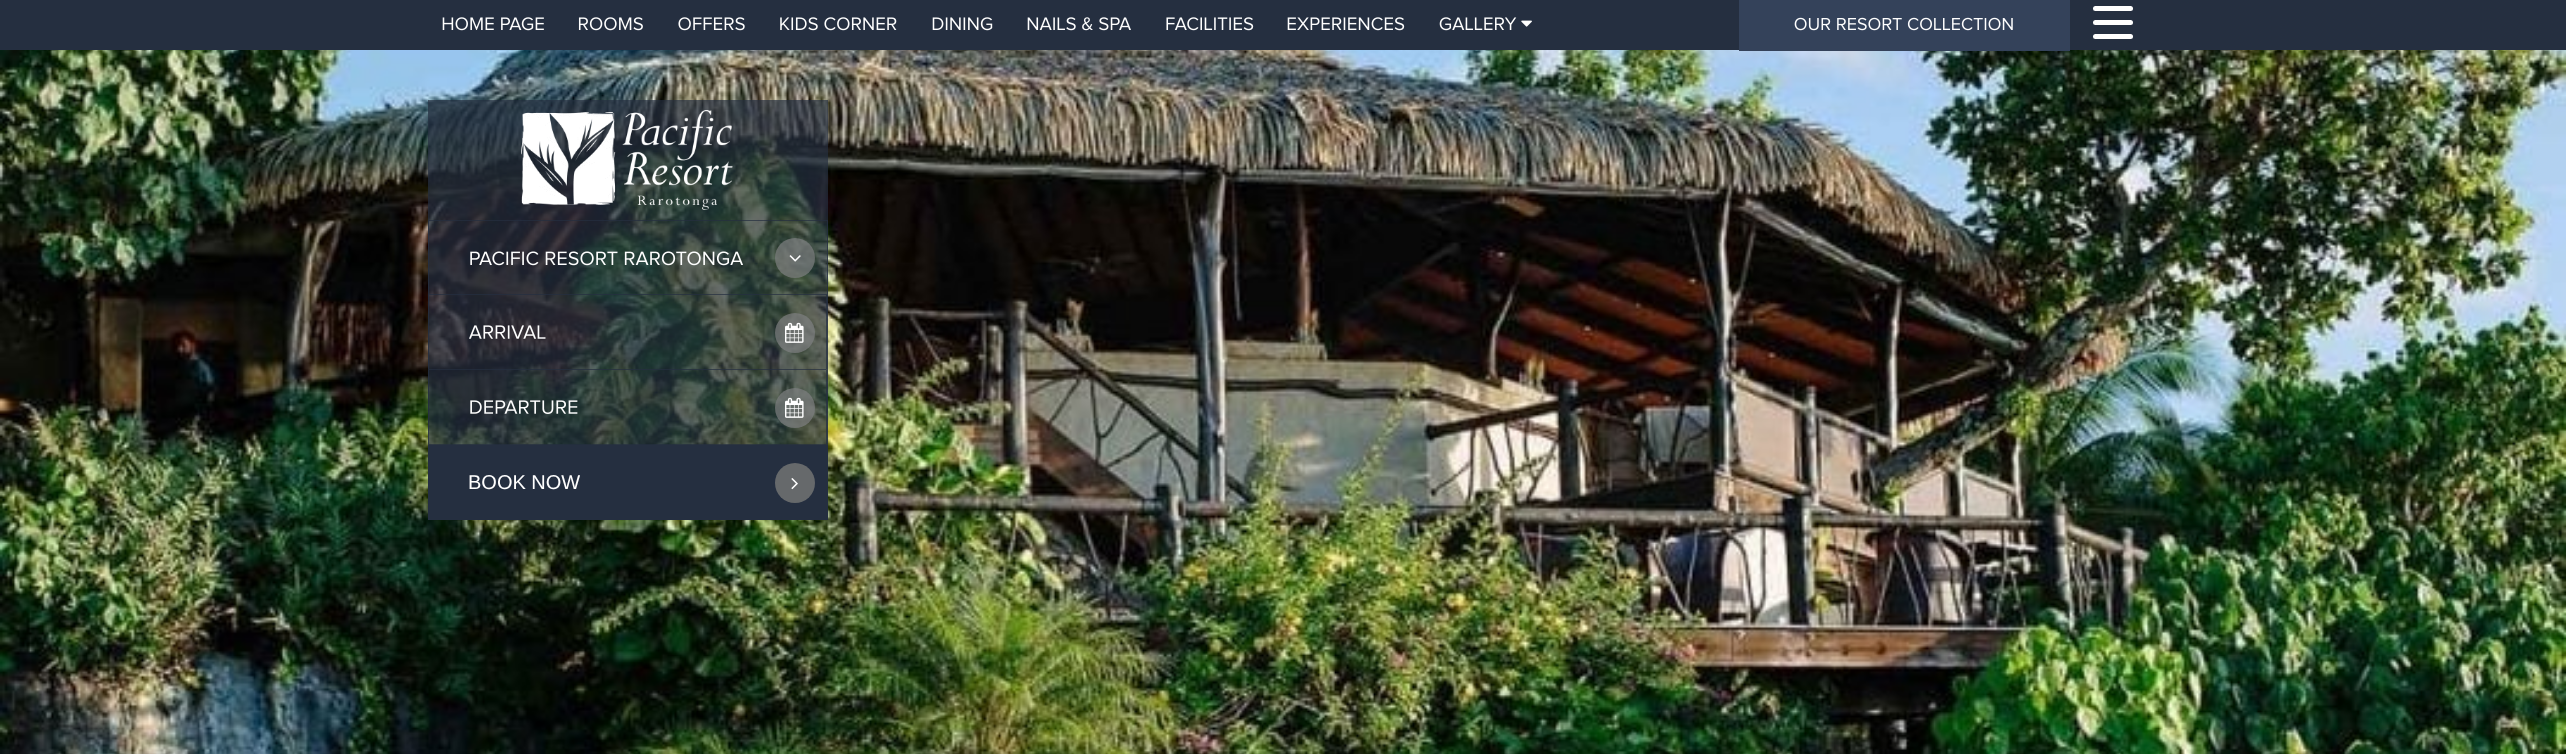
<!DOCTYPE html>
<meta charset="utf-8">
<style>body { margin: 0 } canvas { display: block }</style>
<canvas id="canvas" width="2566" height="754"></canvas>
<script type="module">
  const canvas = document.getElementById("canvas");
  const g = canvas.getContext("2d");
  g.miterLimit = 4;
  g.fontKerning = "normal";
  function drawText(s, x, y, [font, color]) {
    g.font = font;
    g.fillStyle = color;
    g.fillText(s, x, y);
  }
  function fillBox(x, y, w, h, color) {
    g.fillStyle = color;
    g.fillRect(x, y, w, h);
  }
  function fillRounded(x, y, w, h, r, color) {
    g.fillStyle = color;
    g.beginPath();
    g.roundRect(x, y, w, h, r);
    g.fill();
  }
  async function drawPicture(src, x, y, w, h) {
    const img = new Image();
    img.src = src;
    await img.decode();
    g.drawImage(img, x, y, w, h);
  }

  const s1 = ["20px Liberation Sans", "#FFFFFF"];

  fillBox(0, 0, 2566, 754, "#FFFFFF");
  fillBox(0, 0, 2566, 50, "#252F40");
  await drawPicture("pic1.png", 442, 17, 102, 14);
  await drawPicture("pic2.png", 578, 17, 65, 14);
  await drawPicture("pic3.png", 678, 17, 67, 14);
  await drawPicture("pic4.png", 780, 17, 117, 14);
  await drawPicture("pic5.png", 932, 17, 61, 14);
  await drawPicture("pic6.png", 1027, 17, 104, 14);
  await drawPicture("pic7.png", 1166, 17, 88, 14);
  await drawPicture("pic8.png", 1287, 17, 118, 14);
  await drawPicture("pic9.png", 1439, 17, 78, 14);
  await drawPicture("pic10.png", 1521, 20, 11, 7);
  await drawPicture("pic12.png", 0, 50, 2566, 704);
  fillBox(1739, 0, 331, 51, "#34425A");
  await drawPicture("pic11.png", 1794, 17, 219, 14);
  fillRounded(2093, 6, 40, 5, 2.5, "#FFFFFF");
  fillRounded(2093, 20, 40, 5, 2.5, "#FFFFFF");
  fillRounded(2093, 34, 40, 5, 2.5, "#FFFFFF");
  fillBox(428, 100, 400, 120, "rgba(37, 47, 64, 0.7)");
  await drawPicture("pic13.png", 521, 110, 212, 100);
  fillBox(428, 220, 400, 75, "rgba(37, 47, 64, 0.7)");
  g.strokeStyle = "rgba(37, 47, 64, 0.7)";
  g.strokeRect(428.5, 220.5, 399, 74);
  await drawPicture("pic14.png", 470, 251, 273, 15);
  g.fillStyle = "rgba(127, 128, 130, 0.7)";
  g.beginPath();
  g.arc(795, 258, 20, 0, Math.PI * 2);
  g.fill();
  await drawPicture("pic15.png", 789, 255, 12, 7);
  fillBox(428, 295, 400, 75, "rgba(37, 47, 64, 0.7)");
  g.beginPath();
  g.moveTo(828, 295);
  g.lineTo(828, 370);
  g.lineTo(826, 369);
  g.lineTo(826, 295);
  g.closePath();
  g.fill();
  g.beginPath();
  g.moveTo(828, 370);
  g.lineTo(428, 370);
  g.lineTo(429, 369);
  g.lineTo(826, 369);
  g.closePath();
  g.fill();
  g.beginPath();
  g.moveTo(428, 370);
  g.lineTo(428, 295);
  g.lineTo(429, 295);
  g.lineTo(429, 369);
  g.closePath();
  g.fill();
  await drawPicture("pic16.png", 469, 325, 77, 14);
  g.fillStyle = "rgba(127, 128, 130, 0.7)";
  g.beginPath();
  g.arc(795, 333, 20, 0, Math.PI * 2);
  g.fill();
  await drawPicture("pic17.png", 785, 322, 19, 21);
  fillBox(428, 370, 400, 75, "rgba(37, 47, 64, 0.7)");
  g.beginPath();
  g.moveTo(828, 370);
  g.lineTo(828, 445);
  g.lineTo(826, 444);
  g.lineTo(826, 370);
  g.closePath();
  g.fill();
  g.beginPath();
  g.moveTo(828, 445);
  g.lineTo(428, 445);
  g.lineTo(429, 444);
  g.lineTo(826, 444);
  g.closePath();
  g.fill();
  g.beginPath();
  g.moveTo(428, 445);
  g.lineTo(428, 370);
  g.lineTo(429, 370);
  g.lineTo(429, 444);
  g.closePath();
  g.fill();
  await drawPicture("pic18.png", 470, 400, 108, 14);
  g.fillStyle = "rgba(127, 128, 130, 0.7)";
  g.beginPath();
  g.arc(795, 408, 20, 0, Math.PI * 2);
  g.fill();
  await drawPicture("pic19.png", 785, 397, 19, 21);
  fillBox(428, 445, 400, 75, "#252F40");
  drawText("BOOK NOW", 468, 489, s1);
  g.fillStyle = "#66696B";
  g.beginPath();
  g.arc(795, 483, 20, 0, Math.PI * 2);
  g.fill();
  await drawPicture("pic20.png", 791, 478, 7, 12);
</script>
